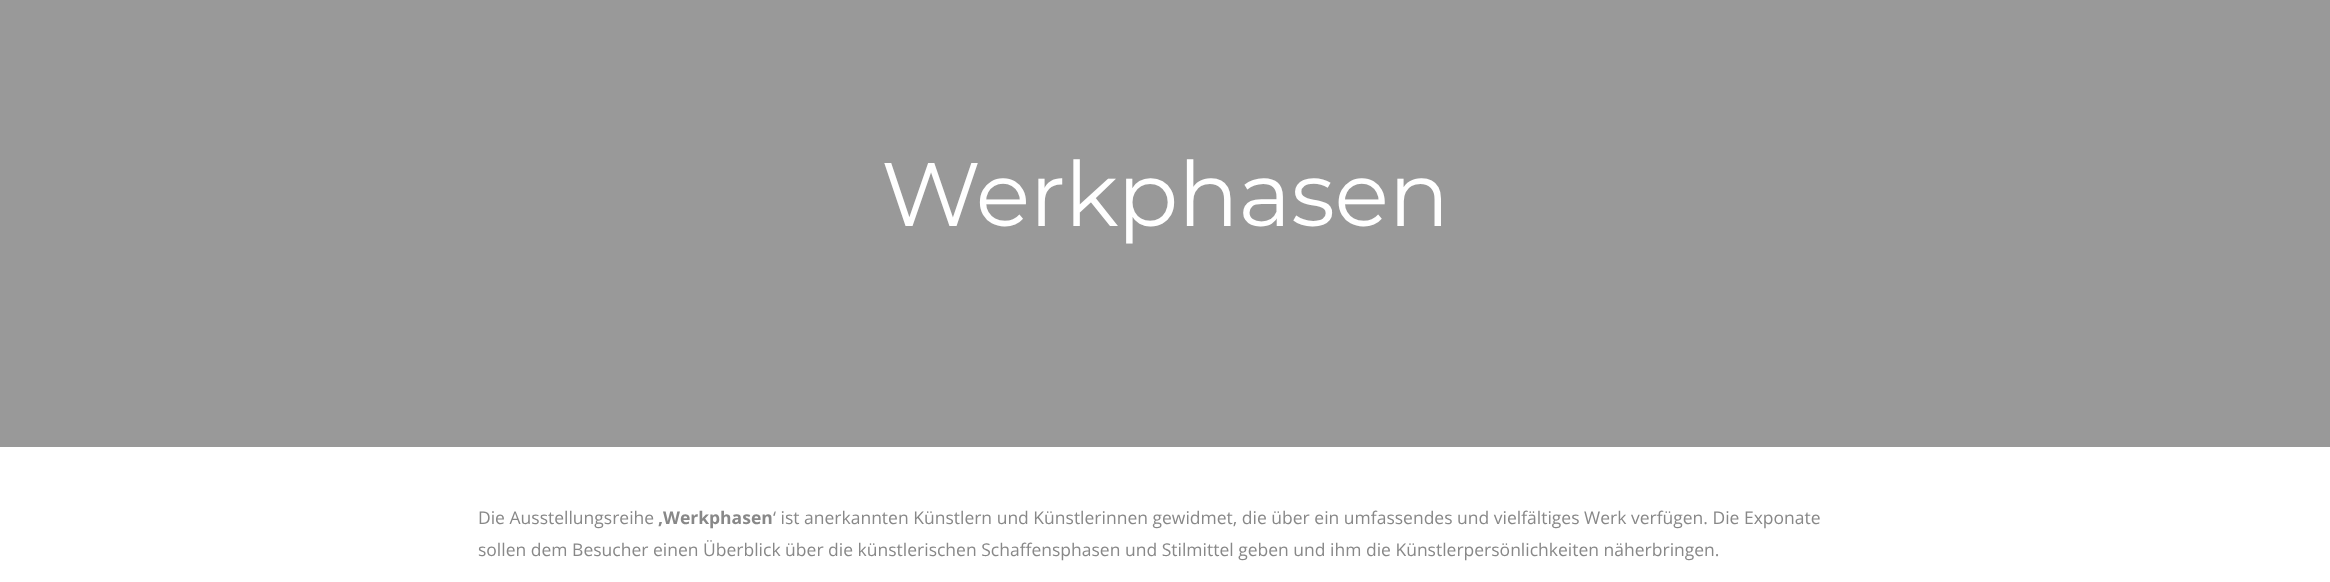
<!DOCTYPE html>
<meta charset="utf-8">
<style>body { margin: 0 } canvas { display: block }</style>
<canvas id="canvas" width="2330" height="582"></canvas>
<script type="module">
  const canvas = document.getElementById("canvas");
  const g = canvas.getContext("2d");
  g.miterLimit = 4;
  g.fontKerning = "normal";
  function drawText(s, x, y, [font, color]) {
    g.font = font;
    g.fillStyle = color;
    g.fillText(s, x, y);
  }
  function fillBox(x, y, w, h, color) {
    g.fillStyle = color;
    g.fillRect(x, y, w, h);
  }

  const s1 = ["90px Montserrat", "#FFFFFF"];
  const s2 = ["17.5px Open Sans", "#888888"];
  const s3 = ["bold 17.5px Open Sans", "#888888"];

  fillBox(0, 0, 2330, 582, "#FFFFFF");
  fillBox(0, 0, 2330, 447, "#999999");
  g.letterSpacing = "-0.4px";
  drawText("Werkphasen", 881, 226, s1);
  g.letterSpacing = "0px";
  drawText("Die Ausstellungsreihe", 478, 524, s2);
  drawText("‚Werkphasen", 658, 524, s3);
  drawText("‘ ist anerkannten Künstlern und Künstlerinnen gewidmet, die über ein umfassendes und vielfältiges Werk verfügen. Die Exponate", 773, 524, s2);
  drawText("sollen dem Besucher einen Überblick über die künstlerischen Schaffensphasen und Stilmittel geben und ihm die Künstlerpersönlichkeiten näherbringen.", 478, 556, s2);
</script>
